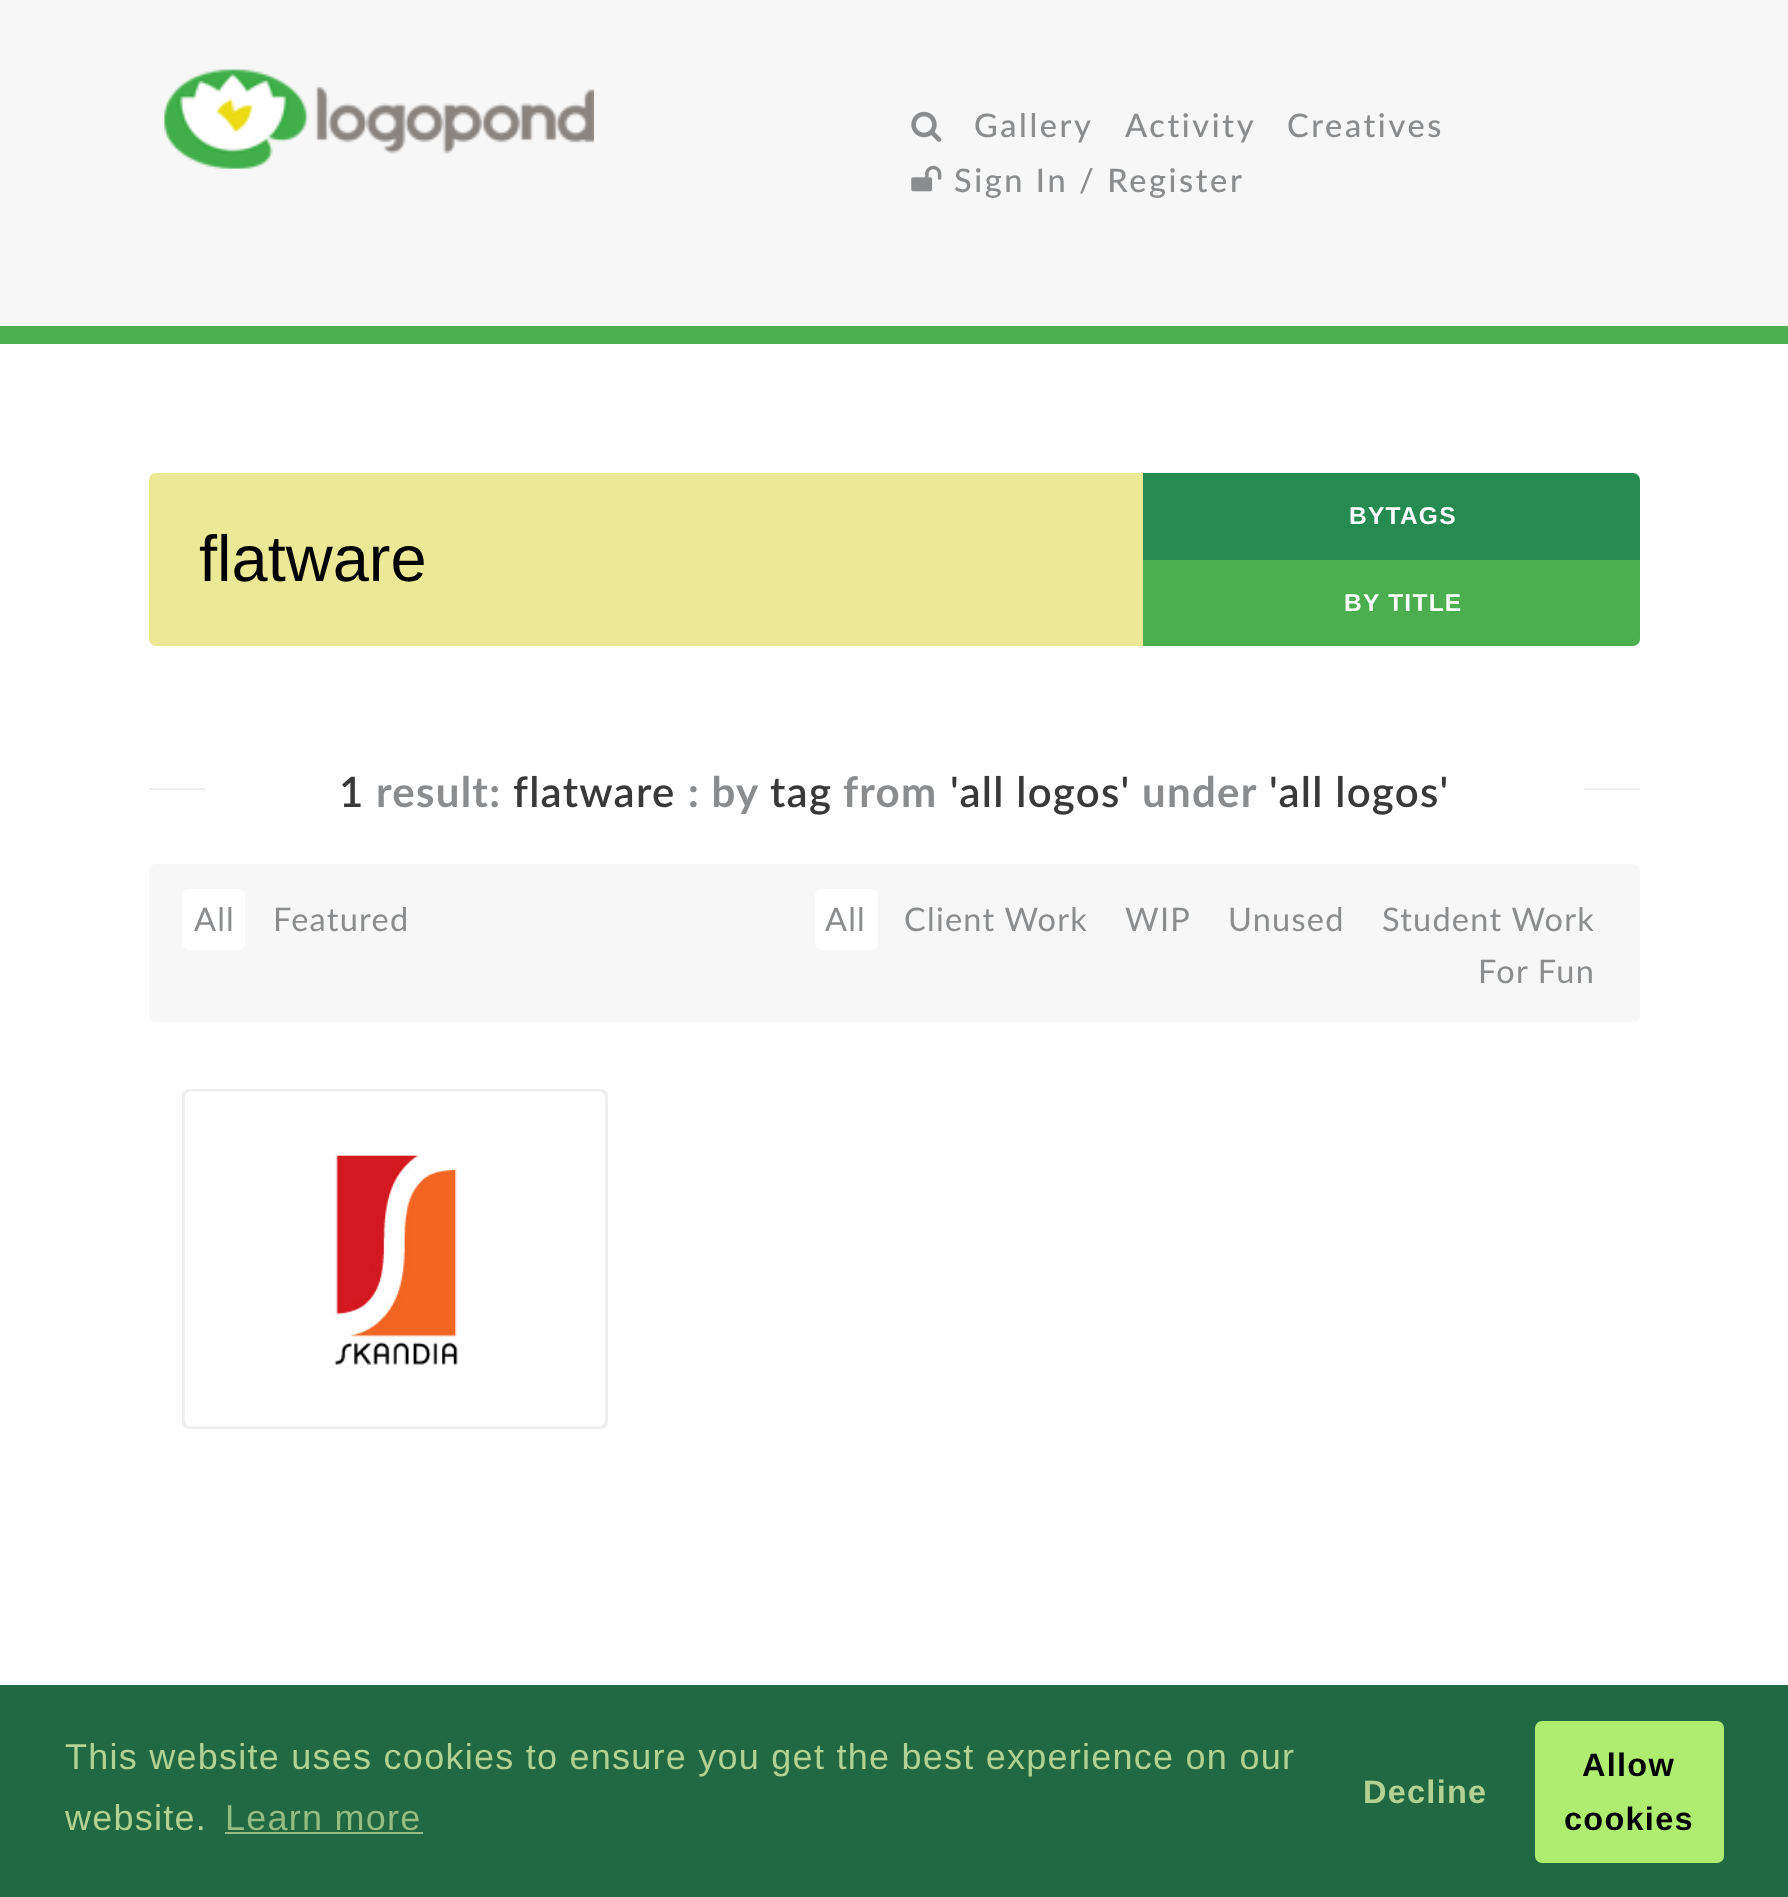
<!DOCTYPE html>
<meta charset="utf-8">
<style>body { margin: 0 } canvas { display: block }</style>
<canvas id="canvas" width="1788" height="1897"></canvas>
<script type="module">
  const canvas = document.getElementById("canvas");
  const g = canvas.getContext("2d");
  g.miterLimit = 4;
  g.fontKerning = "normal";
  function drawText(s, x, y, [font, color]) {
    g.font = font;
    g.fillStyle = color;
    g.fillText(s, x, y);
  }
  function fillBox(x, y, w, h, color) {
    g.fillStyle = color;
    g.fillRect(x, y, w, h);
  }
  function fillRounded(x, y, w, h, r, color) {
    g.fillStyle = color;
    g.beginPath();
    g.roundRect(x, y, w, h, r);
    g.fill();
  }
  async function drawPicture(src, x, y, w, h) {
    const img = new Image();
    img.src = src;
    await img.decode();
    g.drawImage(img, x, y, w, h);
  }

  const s1 = ["500 32.5px Lato", "#8A8C8D"];
  const s2 = ["65px Liberation Sans", "#000000"];
  const s3 = ["bold 24.5px Liberation Sans", "#FFFFFF"];
  const s4 = ["600 42px Lato", "#393939"];
  const s5 = ["bold 42px Lato", "#8A8C8D"];
  const s6 = ["32.5px Lato", "#8A8C8D"];
  const s7 = ["36px Liberation Sans", "#B2D192"];
  const s8 = ["36px Liberation Sans", "#95BC82"];
  const s9 = ["bold 32.5px Liberation Sans", "#B2D192"];
  const s10 = ["bold 32.5px Liberation Sans", "#000000"];

  fillBox(0, 0, 1788, 1897, "#FFFFFF");
  fillBox(0, 0, 1788, 326, "#F7F7F7");
  fillBox(0, 326, 1788, 18, "#4BAF4F");
  await drawPicture("pic1.png", 164, 69, 430, 100);
  await drawPicture("pic2.png", 911, 111, 31, 31);
  g.letterSpacing = "2.6px";
  drawText("Gallery", 974, 137, s1);
  drawText("Activity", 1125, 137, s1);
  drawText("Creatives", 1287, 137, s1);
  await drawPicture("pic3.png", 911, 165, 31, 27);
  drawText("Sign In / Register", 954, 192, s1);
  g.fillStyle = "#ECE996";
  g.beginPath();
  g.roundRect(149, 473, 994, 173, [7, 0, 0, 7]);
  g.fill();
  g.letterSpacing = "0px";
  drawText("flatware", 199, 581, s2);
  g.fillStyle = "#268B51";
  g.beginPath();
  g.roundRect(1143, 473, 497, 87, [0, 7, 0, 0]);
  g.fill();
  g.letterSpacing = "1.25px";
  drawText("BYTAGS", 1349, 524, s3);
  g.fillStyle = "#4BAF4F";
  g.beginPath();
  g.roundRect(1143, 560, 497, 86, [0, 0, 7, 0]);
  g.fill();
  drawText("BY TITLE", 1344, 611, s3);
  fillBox(149, 788, 1491, 2, "#EEEEEE");
  fillBox(205, 788, 1379, 2, "#FFFFFF");
  drawText("1", 339, 807, s4);
  drawText("result:", 376, 807, s5);
  drawText("flatware", 513, 807, s4);
  drawText(": by", 688, 807, s5);
  drawText("tag", 770, 807, s4);
  drawText("from", 843, 807, s5);
  drawText("'all logos'", 950, 807, s4);
  drawText("under", 1142, 807, s5);
  drawText("'all logos'", 1269, 807, s4);
  fillRounded(149, 864, 1491, 158, 7, "#F7F7F7");
  fillRounded(182, 889, 63, 61, 7, "#FFFFFF");
  drawText("All", 194, 931, s6);
  drawText("Featured", 273, 931, s6);
  fillRounded(815, 889, 63, 61, 7, "#FFFFFF");
  drawText("All", 825, 931, s6);
  drawText("Client Work", 904, 931, s6);
  drawText("WIP", 1125, 931, s6);
  drawText("Unused", 1228, 931, s6);
  drawText("Student Work", 1382, 931, s6);
  drawText("For Fun", 1478, 983, s6);
  fillRounded(182, 1089, 426, 340, 7, "#EEEEEE");
  await drawPicture("pic4.png", 184, 1091, 421, 336);
  fillBox(0, 1685, 1788, 212, "#216942");
  drawText("This website uses cookies to ensure you get the best experience on our", 65, 1769, s7);
  drawText("website.", 65, 1830, s7);
  drawText("Learn more", 225, 1830, s8);
  fillBox(225, 1832, 198, 2, "#95BC82");
  drawText("Decline", 1363, 1803, s9);
  fillRounded(1535, 1721, 189, 142, 7, "#AFED71");
  drawText("Allow", 1582, 1776, s10);
  drawText("cookies", 1564, 1830, s10);
</script>
